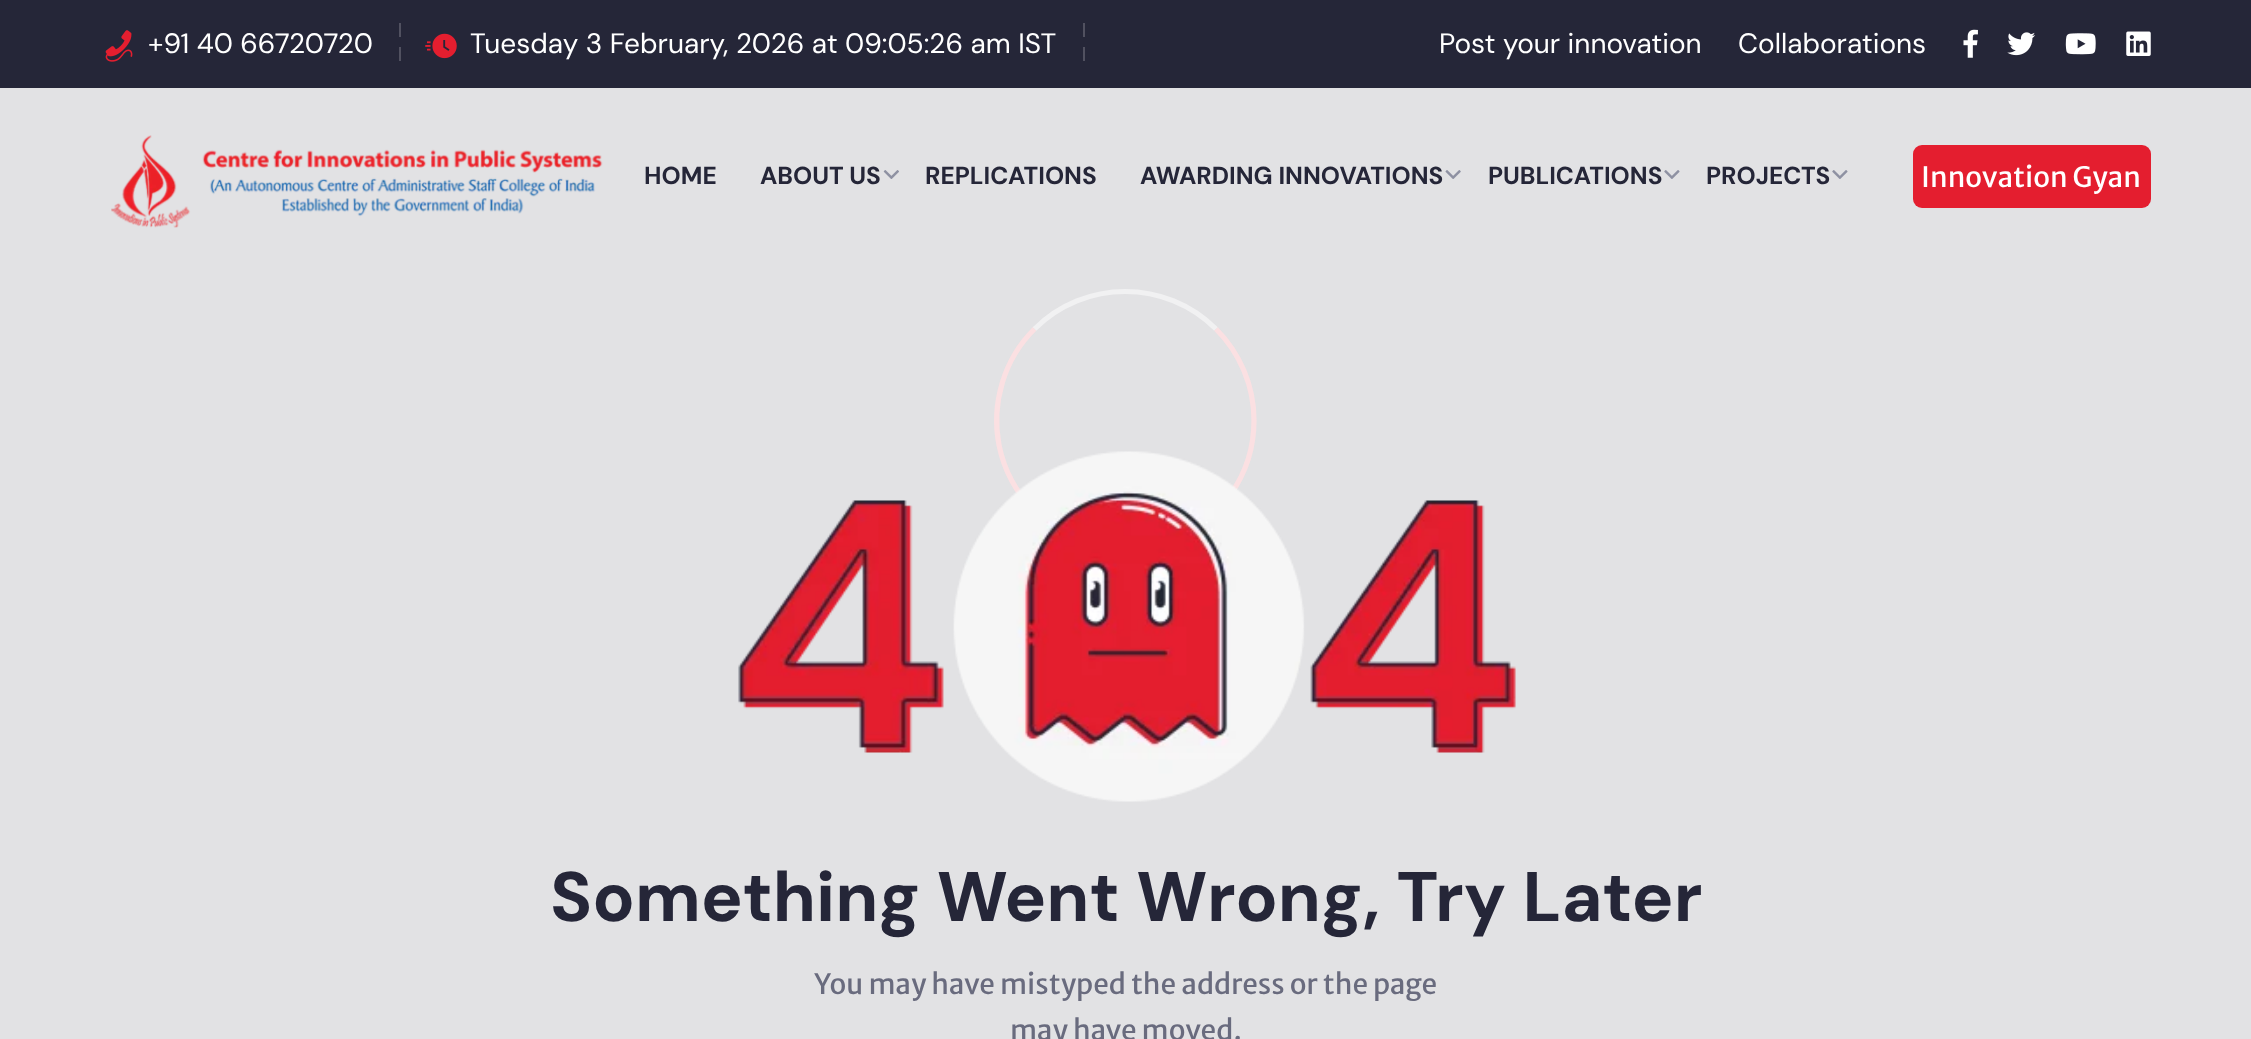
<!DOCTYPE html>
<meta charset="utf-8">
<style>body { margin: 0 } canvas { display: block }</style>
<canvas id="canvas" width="2251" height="1039"></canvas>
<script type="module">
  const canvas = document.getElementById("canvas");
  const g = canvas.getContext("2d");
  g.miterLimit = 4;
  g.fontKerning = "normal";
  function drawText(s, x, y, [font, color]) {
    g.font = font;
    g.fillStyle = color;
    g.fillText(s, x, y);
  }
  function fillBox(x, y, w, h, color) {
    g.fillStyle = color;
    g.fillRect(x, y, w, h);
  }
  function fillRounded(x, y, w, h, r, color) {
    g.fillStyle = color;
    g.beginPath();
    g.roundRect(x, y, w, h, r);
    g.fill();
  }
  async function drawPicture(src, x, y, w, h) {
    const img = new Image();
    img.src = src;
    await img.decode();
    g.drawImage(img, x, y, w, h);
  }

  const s1 = ["28px DM Sans", "#FFFFFF"];
  const s2 = ["bold 24.5px DM Sans", "#252638"];
  const s3 = ["28px Merriweather Sans", "#FFFFFF"];
  const s4 = ["bold 70px DM Sans", "#252638"];
  const s5 = ["28px Merriweather Sans", "#696B7E"];

  fillBox(0, 0, 2251, 1039, "#E2E2E4");
  fillBox(0, 0, 2251, 88, "#252638");
  await drawPicture("pic1.png", 105, 30, 28, 32);
  drawText("+91 40 66720720", 148, 53, s1);
  fillBox(399, 23, 2, 14, "#515160");
  fillBox(399, 47, 2, 14, "#515160");
  fillBox(1083, 23, 2, 14, "#515160");
  await drawPicture("pic2.png", 425, 33, 32, 26);
  drawText("Tuesday 3 February, 2026 at 09:05:26 am IST", 470, 53, s1);
  fillBox(1083, 47, 2, 14, "#515160");
  drawText("Post your innovation", 1439, 53, s1);
  drawText("Collaborations", 1738, 53, s1);
  await drawPicture("pic3.png", 1963, 29, 15, 29);
  await drawPicture("pic4.png", 2007, 32, 29, 24);
  await drawPicture("pic5.png", 2065, 33, 31, 22);
  await drawPicture("pic6.png", 2126, 31, 25, 25);
  await drawPicture("pic7.png", 111, 135, 492, 93);
  drawText("HOME", 644, 184, s2);
  drawText("ABOUT US", 760, 184, s2);
  await drawPicture("pic8.png", 883, 170, 16, 9);
  drawText("REPLICATIONS", 925, 184, s2);
  drawText("AWARDING INNOVATIONS", 1140, 184, s2);
  await drawPicture("pic9.png", 1445, 170, 16, 9);
  drawText("PUBLICATIONS", 1488, 184, s2);
  await drawPicture("pic10.png", 1664, 170, 16, 9);
  drawText("PROJECTS", 1706, 184, s2);
  await drawPicture("pic10.png", 1832, 170, 16, 9);
  fillRounded(1913, 145, 238, 63, 9, "#E41E2F");
  drawText("Innovation Gyan", 1921, 187, s3);
  g.beginPath();
  g.moveTo(1034.5, 329);
  g.bezierCurveTo(1084.5, 279, 1166, 279, 1216, 329);
  g.strokeStyle = "#F1F1F2";
  g.lineWidth = 5.2;
  g.stroke();
  g.beginPath();
  g.moveTo(1216, 329);
  g.bezierCurveTo(1240, 353, 1254, 386, 1254, 420);
  g.bezierCurveTo(1254, 534, 1115, 591.5, 1034.5, 511);
  g.bezierCurveTo(1016.5, 493, 1004, 470, 999, 445);
  g.bezierCurveTo(991, 403.5, 1004, 359, 1034.5, 329);
  g.strokeStyle = "#FBE0E2";
  g.stroke();
  await drawPicture("pic11.png", 738, 451, 778, 351);
  drawText("Something Went Wrong, Try Later", 550, 921, s4);
  drawText("You may have mistyped the address or the page", 814, 994, s5);
  drawText("may have moved.", 1010, 1040, s5);
</script>
